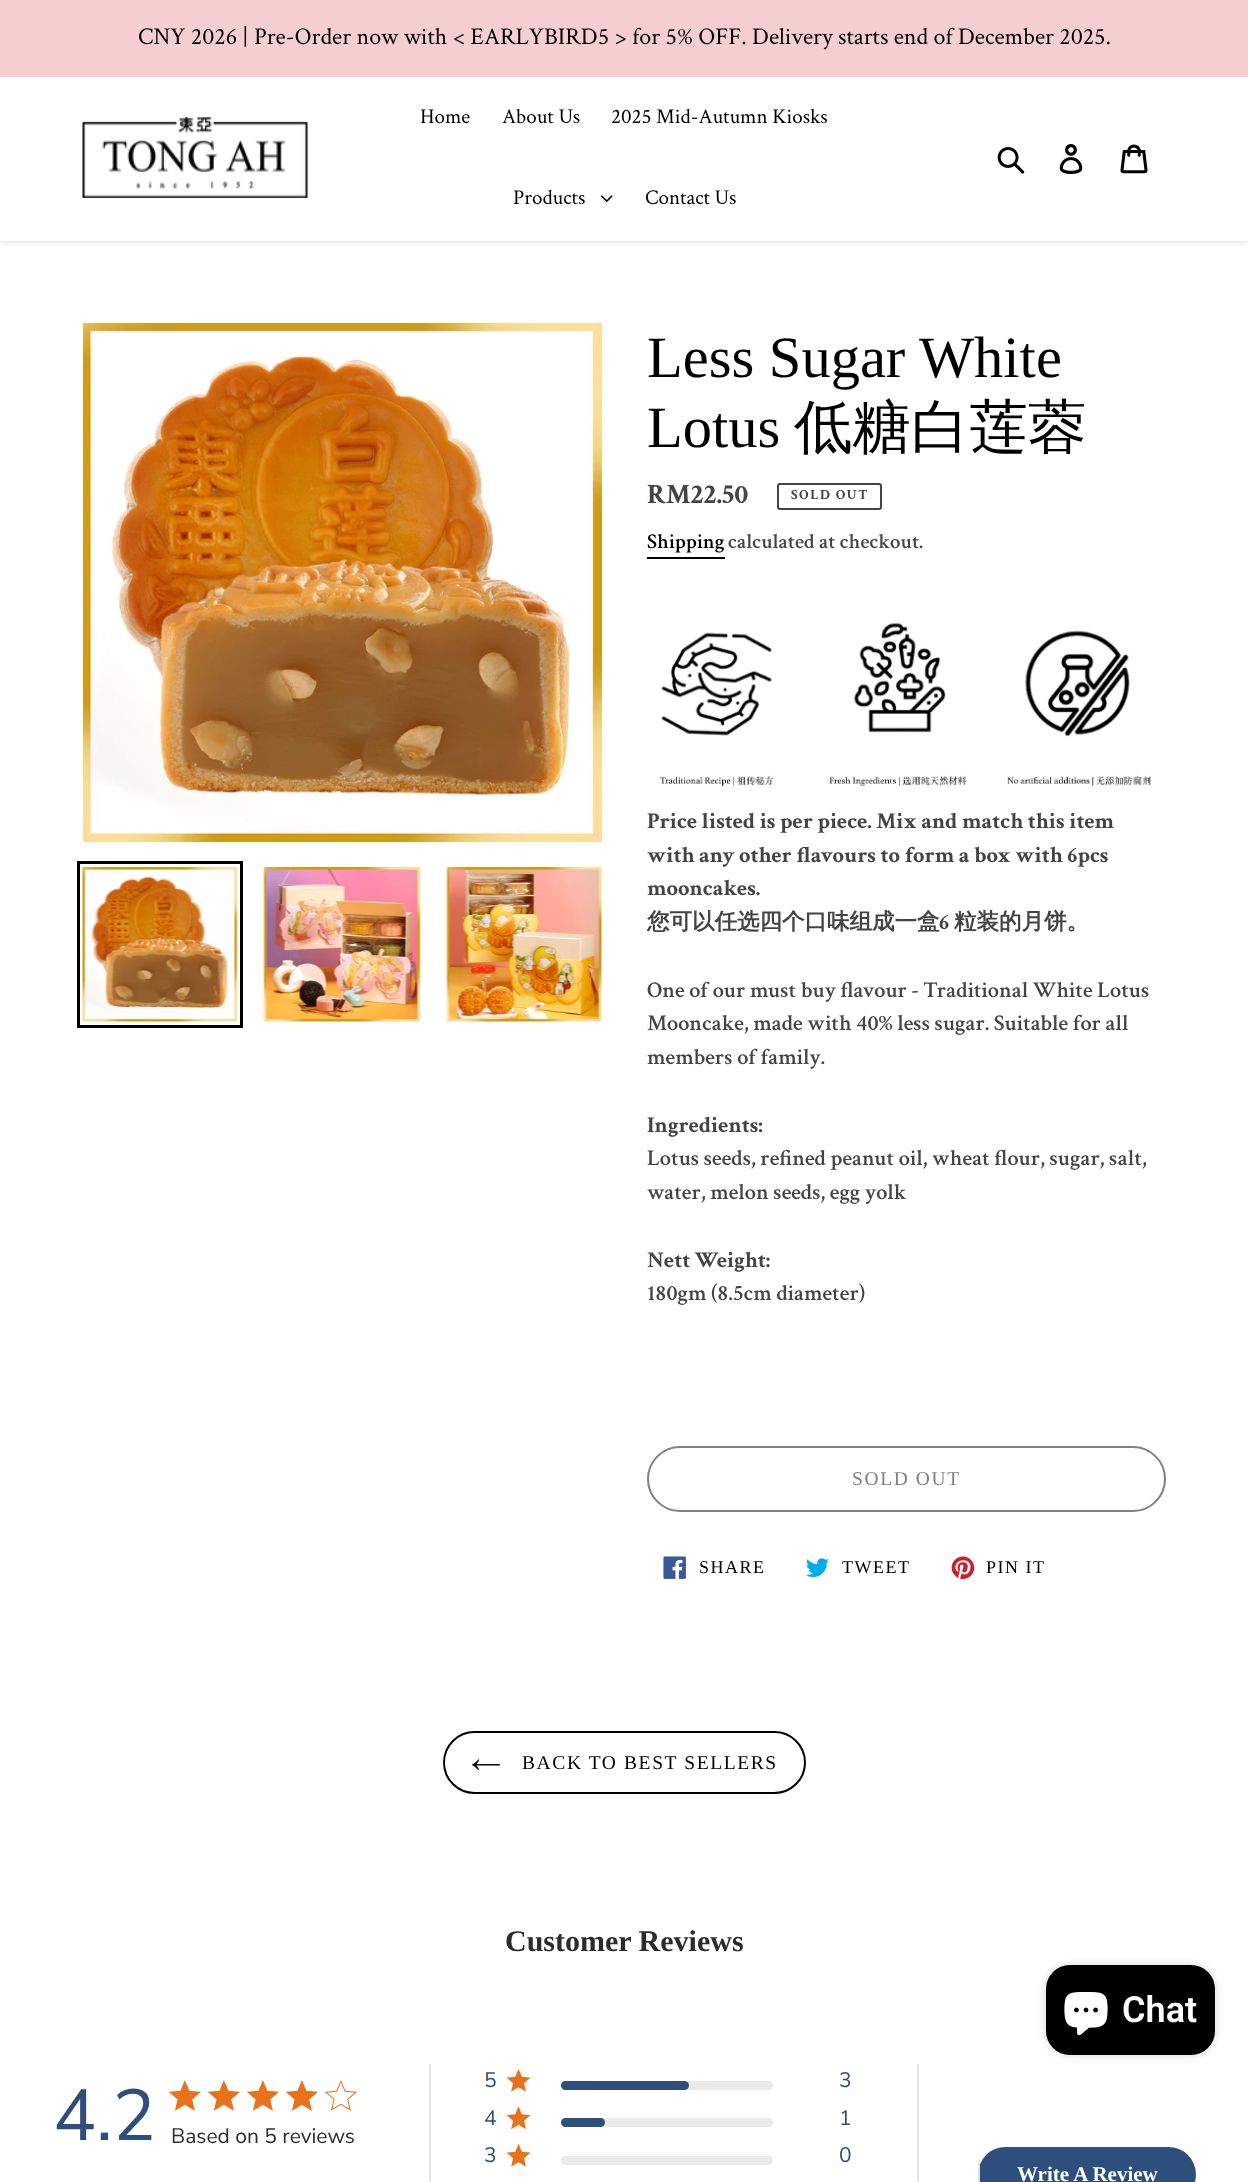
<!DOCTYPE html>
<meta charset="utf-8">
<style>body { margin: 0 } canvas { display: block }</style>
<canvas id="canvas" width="1248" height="2182"></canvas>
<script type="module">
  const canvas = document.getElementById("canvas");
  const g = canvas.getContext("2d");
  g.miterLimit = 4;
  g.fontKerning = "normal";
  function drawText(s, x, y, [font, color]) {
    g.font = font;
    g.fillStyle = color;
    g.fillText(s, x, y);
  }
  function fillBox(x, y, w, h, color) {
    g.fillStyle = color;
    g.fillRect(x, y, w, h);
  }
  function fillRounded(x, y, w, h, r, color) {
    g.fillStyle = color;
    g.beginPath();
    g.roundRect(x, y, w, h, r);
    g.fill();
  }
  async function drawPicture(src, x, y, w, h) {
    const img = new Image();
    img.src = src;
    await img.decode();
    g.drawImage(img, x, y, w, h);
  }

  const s1 = ["24px Crimson Text", "#000000"];
  const s2 = ["21px Crimson Text", "#000000"];
  const s3 = ["58.5px Liberation Serif", "#000000"];
  const s4 = ["500 58.5px WenQuanYi Zen Hei", "#000000"];
  const s5 = ["bold 28px Crimson Text", "#444444"];
  const s6 = ["bold 14px Crimson Text", "#444444"];
  const s7 = ["600 21px Crimson Text", "#000000"];
  const s8 = ["600 21px Crimson Text", "#444444"];
  const s9 = ["bold 22.5px Crimson Text", "#444444"];
  const s10 = ["bold 22.5px WenQuanYi Zen Hei", "#444444"];
  const s11 = ["600 22.5px Crimson Text", "#444444"];
  const s12 = ["19.5px Liberation Serif", "#808080"];
  const s13 = ["18px Liberation Serif", "#000000"];
  const s14 = ["19.5px Liberation Serif", "#000000"];
  const s15 = ["bold 30px Liberation Serif", "#2C2C2C"];
  const s16 = ["200 72px Nunito Sans", "#2E4F7C"];
  const s17 = ["200 21px Nunito Sans", "#2C2C2C"];
  const s18 = ["200 21px Nunito Sans", "#2E4F7C"];
  const s19 = ["bold 21px Liberation Serif", "#FFFFFF"];
  const s20 = ["600 36px Roboto", "#FFFFFF"];

  fillBox(0, 0, 1248, 2182, "#FFFFFF");
  g.save();
  g.beginPath();
  g.rect(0, 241, 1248, 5);
  g.clip();
  g.fillStyle = "rgba(0, 0, 0, 0.1)";
  g.filter = "blur(3px)";
  g.beginPath();
  g.rect(0, 3, 1248, 240);
  g.fill();
  g.filter = "none";
  g.restore();
  fillBox(0, 0, 1248, 77, "#F5CFCF");
  drawText("CNY 2026 | Pre-Order now with < EARLYBIRD5 > for 5% OFF. Delivery starts end of December 2025.", 138, 44, s1);
  fillBox(0, 240, 1248, 1, "#FFFFFF");
  await drawPicture("pic1.png", 82, 117, 226, 81);
  drawText("Home", 420, 123, s2);
  drawText("About Us", 502, 123, s2);
  drawText("2025 Mid-Autumn Kiosks", 611, 123, s2);
  drawText("Products", 513, 204, s2);
  await drawPicture("pic2.png", 601, 195, 12, 8);
  drawText("Contact Us", 645, 204, s2);
  await drawPicture("pic3.png", 997, 147, 28, 27);
  await drawPicture("pic4.png", 1059, 144, 24, 30);
  await drawPicture("pic5.png", 1120, 144, 28, 30);
  await drawPicture("pic6.png", 83, 323, 519, 519);
  g.strokeStyle = "#000000";
  g.lineWidth = 3;
  g.strokeRect(78.5, 862.5, 163, 164);
  await drawPicture("pic7.png", 82, 867, 156, 155);
  await drawPicture("pic8.png", 263, 867, 158, 155);
  await drawPicture("pic9.png", 446, 867, 156, 155);
  drawText("Less Sugar White", 647, 377, s3);
  drawText("Lotus", 647, 447, s3);
  drawText("低糖白莲蓉", 794, 447, s4);
  drawText("RM22.50", 647, 503, s5);
  g.beginPath();
  g.roundRect(778, 484, 103, 25, 2);
  g.strokeStyle = "#444444";
  g.lineWidth = 2;
  g.stroke();
  g.letterSpacing = "1.5px";
  drawText("SOLD OUT", 791, 499, s6);
  g.letterSpacing = "0px";
  drawText("Shipping", 647, 548, s7);
  fillBox(647, 557, 78, 2, "#000000");
  drawText("calculated at checkout.", 728, 548, s8);
  await drawPicture("pic10.png", 659, 622, 493, 165);
  drawText("Price listed is per piece. Mix and match this item", 647, 828, s9);
  drawText("with any other flavours to form a box with 6pcs", 647, 862, s9);
  drawText("mooncakes.", 647, 895, s9);
  drawText("您可以任选四个口味组成一盒", 647, 929, s10);
  drawText("6", 939, 929, s9);
  drawText("粒装的月饼。", 954, 929, s10);
  drawText("One of our must buy flavour - Traditional White Lotus", 647, 997, s11);
  drawText("Mooncake, made with 40% less sugar. Suitable for all", 647, 1030, s11);
  drawText("members of family.", 647, 1064, s11);
  drawText("Ingredients:", 647, 1132, s9);
  drawText("Lotus seeds, refined peanut oil, wheat flour, sugar, salt,", 647, 1165, s11);
  drawText("water, melon seeds, egg yolk", 647, 1199, s11);
  drawText("Nett Weight:", 647, 1267, s9);
  drawText("180gm (8.5cm diameter)", 647, 1300, s11);
  g.beginPath();
  g.roundRect(648, 1447, 517, 64, 32);
  g.strokeStyle = "#808080";
  g.stroke();
  g.letterSpacing = "1.6px";
  drawText("SOLD OUT", 852, 1485, s12);
  await drawPicture("pic11.png", 663, 1556, 23, 23);
  g.letterSpacing = "1.5px";
  drawText("SHARE", 699, 1573, s13);
  await drawPicture("pic12.png", 806, 1558, 23, 20);
  drawText("TWEET", 842, 1573, s13);
  await drawPicture("pic13.png", 951, 1556, 24, 23);
  drawText("PIN IT", 986, 1573, s13);
  g.beginPath();
  g.roundRect(444, 1732, 361, 61, 30.5);
  g.strokeStyle = "#000000";
  g.stroke();
  await drawPicture("pic14.png", 472, 1759, 28, 12);
  g.letterSpacing = "1.6px";
  drawText("BACK TO BEST SELLERS", 522, 1769, s14);
  g.letterSpacing = "0px";
  drawText("Customer Reviews", 505, 1951, s15);
  drawText("4.2", 53, 2140, s16);
  await drawPicture("pic15.png", 168, 2080, 33, 31);
  await drawPicture("pic15.png", 207, 2080, 33, 31);
  await drawPicture("pic15.png", 246, 2080, 33, 31);
  await drawPicture("pic15.png", 285, 2080, 33, 31);
  await drawPicture("pic16.png", 324, 2080, 33, 31);
  drawText("Based on 5 reviews", 171, 2143, s17);
  fillBox(429, 2064, 2, 118, "#E3E3E3");
  fillBox(917, 2064, 2, 118, "#E3E3E3");
  drawText("5", 484, 2087, s18);
  await drawPicture("pic17.png", 507, 2069, 24, 23);
  fillRounded(561, 2081, 212, 9, 4.5, "#EAEAEA");
  fillRounded(561, 2081, 128, 9, 4.5, "#2E4F7C");
  drawText("3", 839, 2087, s18);
  drawText("4", 484, 2125, s18);
  await drawPicture("pic18.png", 507, 2106, 24, 24);
  fillRounded(561, 2118, 212, 9, 4.5, "#EAEAEA");
  fillRounded(561, 2118, 44, 9, 4.5, "#2E4F7C");
  drawText("1", 839, 2125, s18);
  drawText("3", 484, 2162, s18);
  await drawPicture("pic17.png", 507, 2144, 24, 23);
  fillRounded(561, 2156, 212, 9, 4.5, "#EAEAEA");
  drawText("0", 839, 2162, s18);
  fillBox(518, 2181, 1, 1, "#FBE6D6");
  fillRounded(978, 2147, 218, 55, 27.5, "#2E4F7C");
  fillBox(978, 2160, 2, 22, "#E3E3E3");
  drawText("Write A Review", 1017, 2181, s19);
  g.fillStyle = "rgba(0, 0, 0, 0.15)";
  g.filter = "blur(4px)";
  g.beginPath();
  g.roundRect(1046, 1965, 169, 90, 24);
  g.fill();
  g.filter = "none";
  fillRounded(1046, 1965, 169, 90, 24, "#000000");
  await drawPicture("pic19.png", 1064, 1992, 44, 44);
  drawText("Chat", 1122, 2022, s20);
</script>
